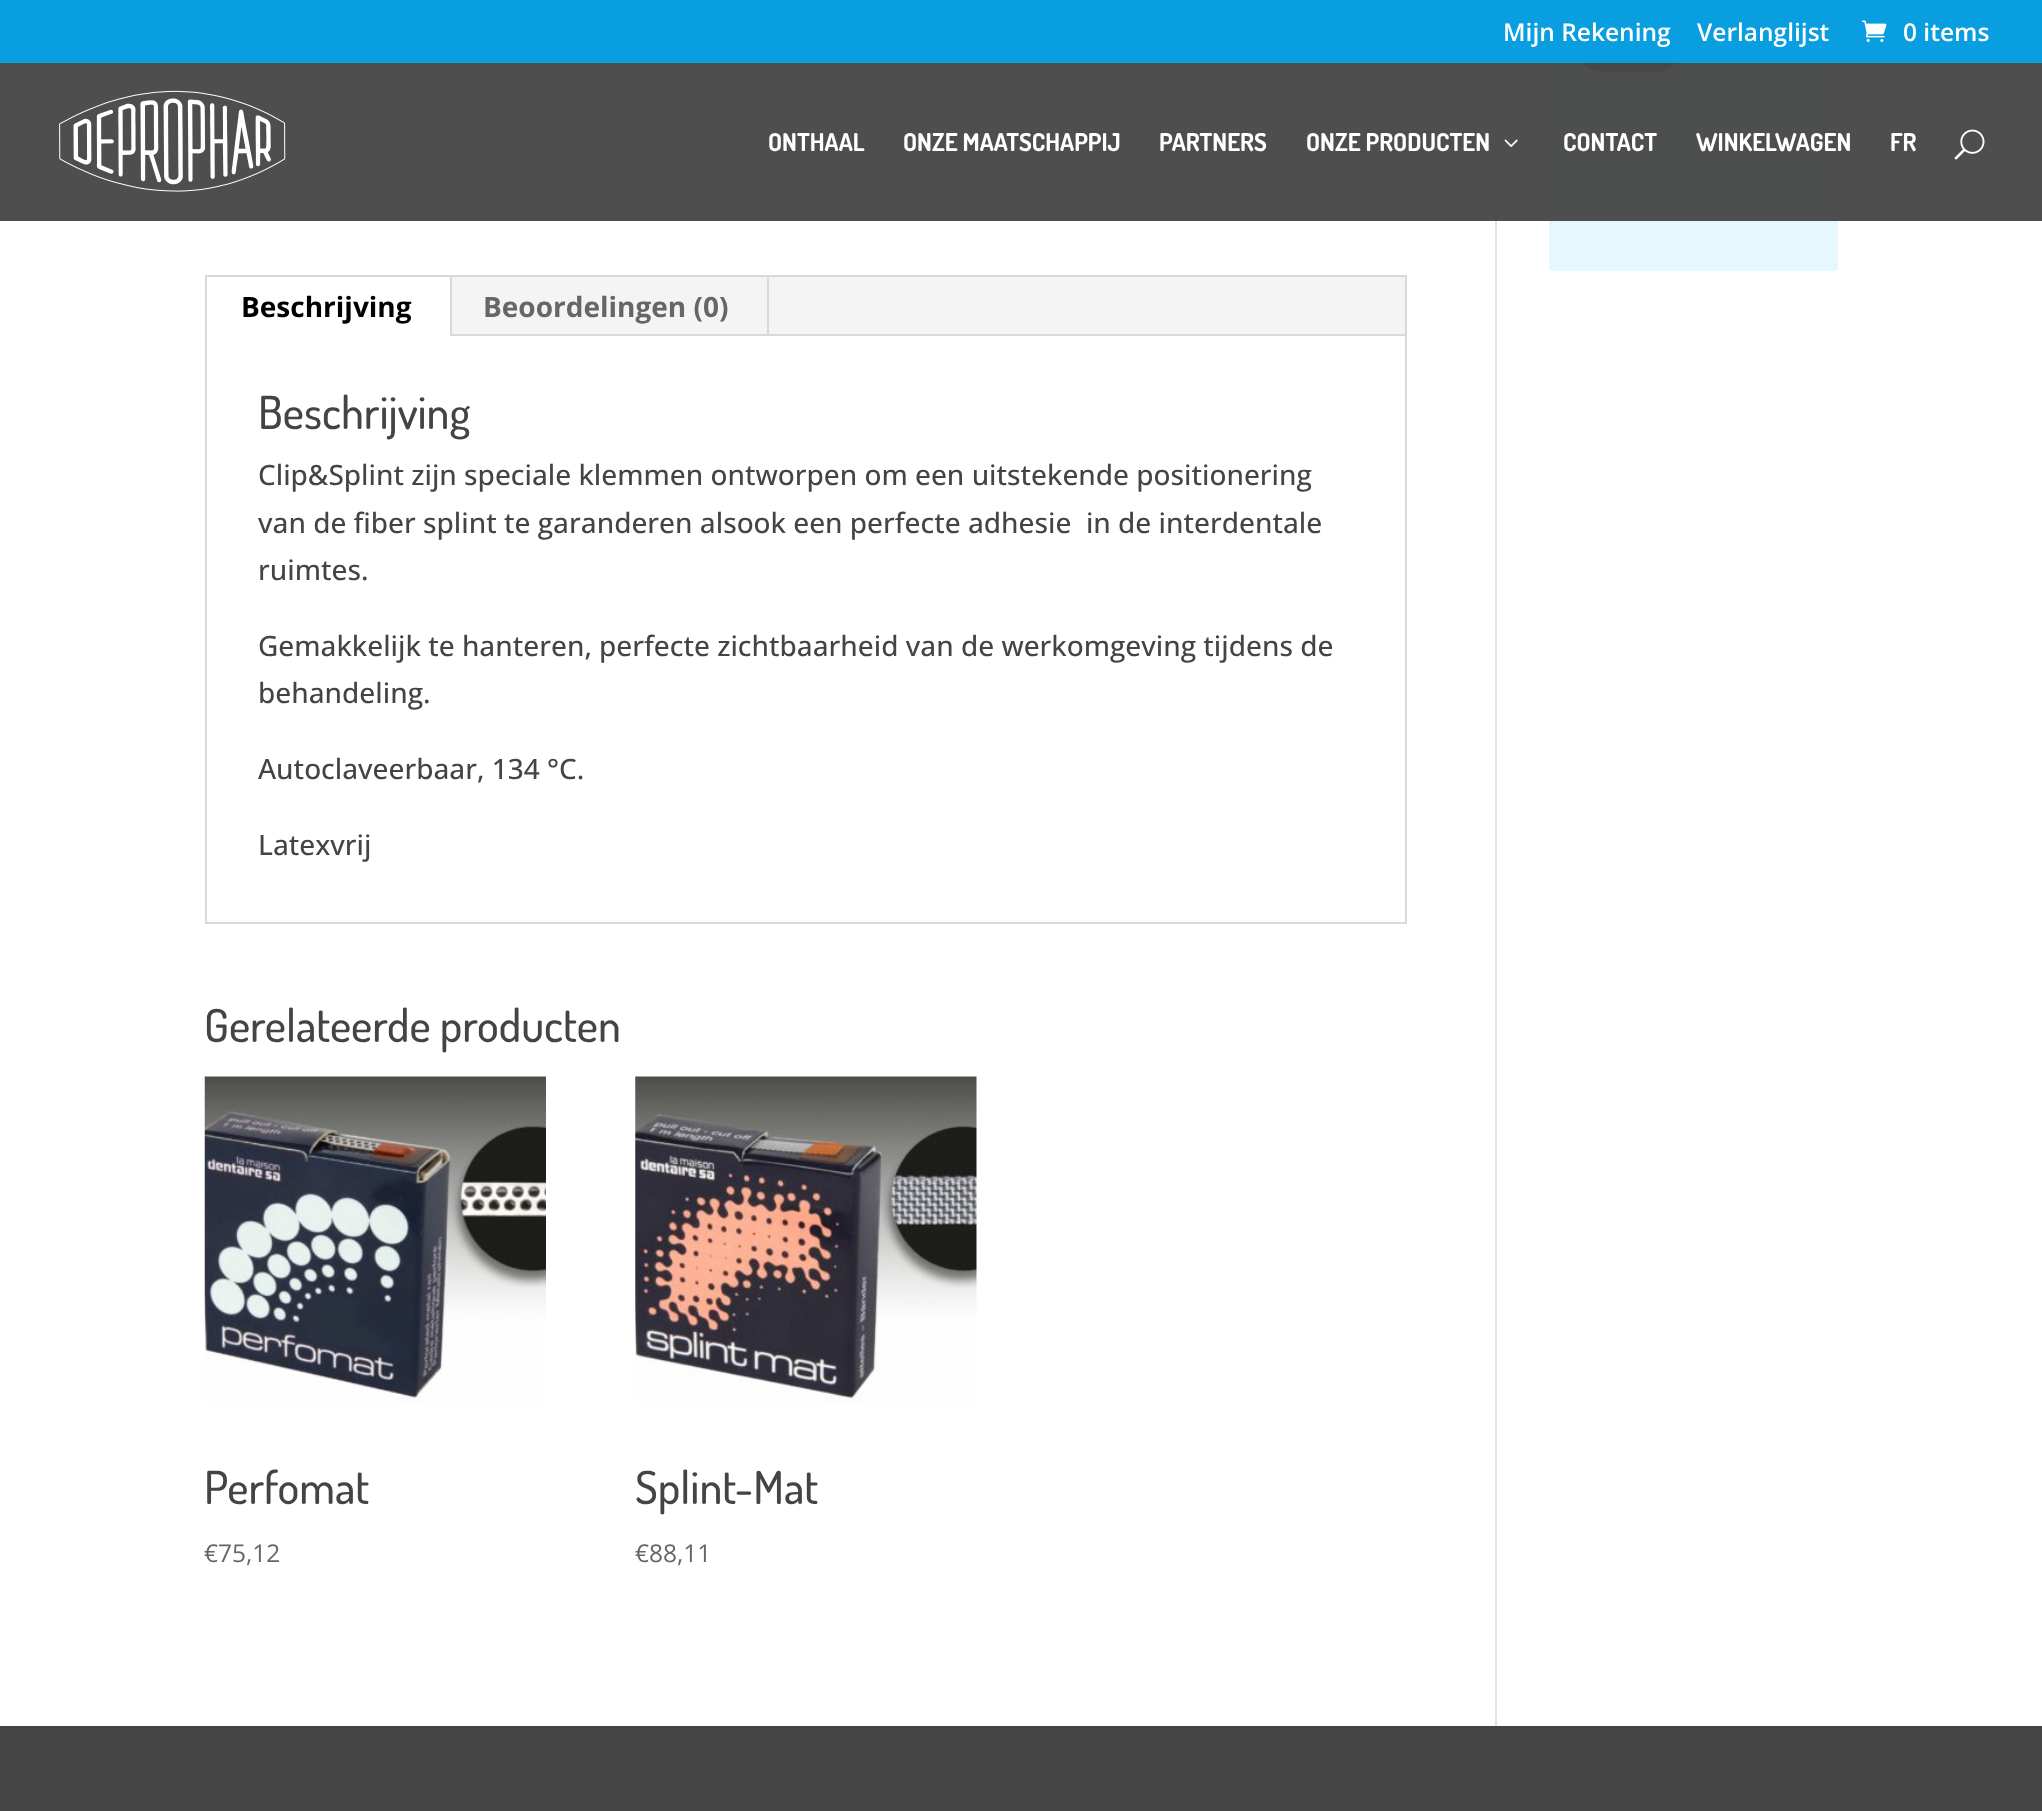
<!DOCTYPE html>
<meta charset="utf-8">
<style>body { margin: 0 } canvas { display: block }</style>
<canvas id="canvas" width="2042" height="1811"></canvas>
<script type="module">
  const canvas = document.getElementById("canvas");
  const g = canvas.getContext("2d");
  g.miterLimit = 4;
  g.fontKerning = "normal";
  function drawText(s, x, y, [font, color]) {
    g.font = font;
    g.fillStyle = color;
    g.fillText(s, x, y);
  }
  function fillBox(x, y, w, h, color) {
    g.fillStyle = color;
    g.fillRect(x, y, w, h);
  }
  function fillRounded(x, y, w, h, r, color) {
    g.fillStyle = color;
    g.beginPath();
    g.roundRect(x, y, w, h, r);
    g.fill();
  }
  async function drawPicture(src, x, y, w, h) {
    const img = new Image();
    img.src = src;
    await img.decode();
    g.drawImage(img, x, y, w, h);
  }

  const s1 = ["600 24.5px Open Sans", "#FFFFFF"];
  const s2 = ["bold 24.5px Dosis", "#FFFFFF"];
  const s3 = ["bold 28px Open Sans", "#000000"];
  const s4 = ["bold 28px Open Sans", "#666666"];
  const s5 = ["500 45.5px Dosis", "#444444"];
  const s6 = ["500 28px Open Sans", "#444444"];
  const s7 = ["24.5px Open Sans", "#666666"];

  fillBox(0, 0, 2042, 1811, "#FFFFFF");
  fillRounded(1549, -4, 289, 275, 4, "#E6F7FE");
  fillRounded(1577, 21, 105, 51, 25.5, "#888888");
  fillBox(0, 0, 2042, 63, "#099EE0");
  drawText("Mijn Rekening", 1503, 41, s1);
  drawText("Verlanglijst", 1697, 41, s1);
  await drawPicture("pic1.png", 1862, 20, 25, 22);
  drawText("0 items", 1903, 41, s1);
  fillBox(1495, 63, 2, 1663, "#E2E2E2");
  fillBox(0, 63, 2042, 158, "rgba(68, 68, 68, 0.95)");
  await drawPicture("pic2.png", 59, 90, 227, 102);
  drawText("ONTHAAL", 768, 151, s2);
  drawText("ONZE MAATSCHAPPIJ", 903, 151, s2);
  drawText("PARTNERS", 1159, 151, s2);
  drawText("ONZE PRODUCTEN", 1306, 151, s2);
  await drawPicture("pic3.png", 1504, 139, 14, 8);
  drawText("CONTACT", 1563, 151, s2);
  drawText("WINKELWAGEN", 1696, 151, s2);
  drawText("FR", 1890, 151, s2);
  await drawPicture("pic4.png", 1954, 129, 31, 31);
  g.strokeStyle = "#D9D9D9";
  g.lineWidth = 2;
  g.strokeRect(206, 276, 1200, 647);
  fillBox(452, 277, 953, 57, "#F4F4F4");
  fillBox(450, 277, 2, 59, "#D9D9D9");
  drawText("Beschrijving", 241, 317, s3);
  fillBox(767, 277, 2, 59, "#D9D9D9");
  drawText("Beoordelingen (0)", 483, 317, s4);
  fillBox(452, 334, 953, 2, "#D9D9D9");
  drawText("Beschrijving", 258, 429, s5);
  drawText("Clip&Splint zijn speciale klemmen ontworpen om een uitstekende positionering", 258, 485, s6);
  drawText("van de fiber splint te garanderen alsook een perfecte adhesie  in de interdentale", 258, 533, s6);
  drawText("ruimtes.", 258, 580, s6);
  drawText("Gemakkelijk te hanteren, perfecte zichtbaarheid van de werkomgeving tijdens de", 258, 656, s6);
  drawText("behandeling.", 258, 703, s6);
  drawText("Autoclaveerbaar, 134 °C.", 258, 779, s6);
  drawText("Latexvrij", 258, 855, s6);
  drawText("Gerelateerde producten", 204, 1042, s5);
  await drawPicture("pic5.png", 204, 1076, 342, 327);
  drawText("Perfomat", 204, 1504, s5);
  drawText("€75,12", 204, 1562, s7);
  await drawPicture("pic6.png", 635, 1076, 342, 327);
  drawText("Splint-Mat", 635, 1504, s5);
  drawText("€88,11", 635, 1562, s7);
  fillBox(0, 1726, 2042, 85, "#444444");
</script>
